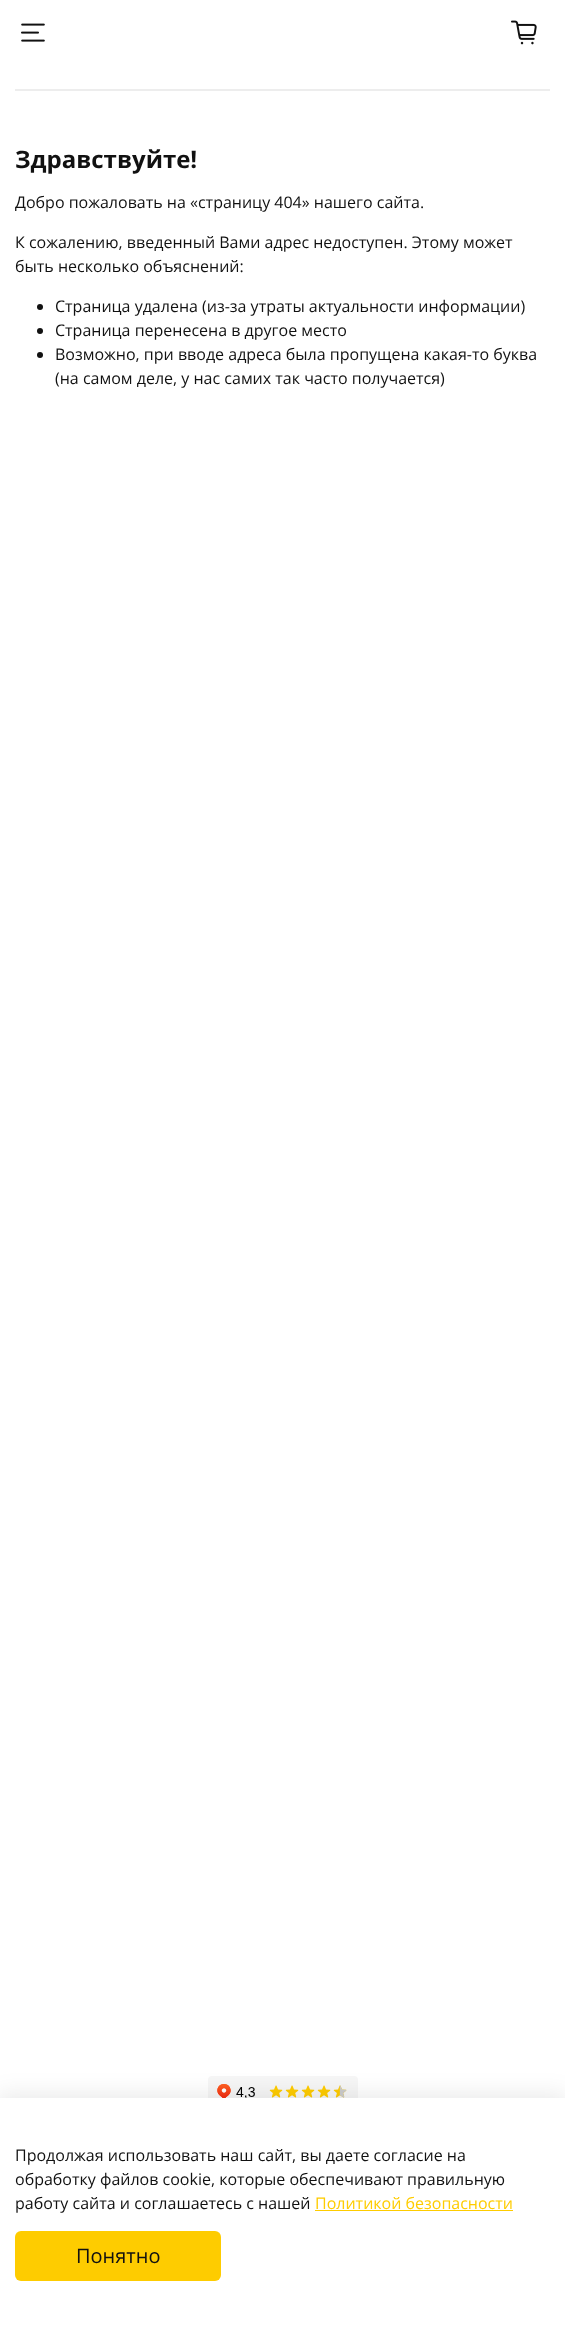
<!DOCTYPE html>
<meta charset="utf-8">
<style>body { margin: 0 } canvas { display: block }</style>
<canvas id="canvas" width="565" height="2326"></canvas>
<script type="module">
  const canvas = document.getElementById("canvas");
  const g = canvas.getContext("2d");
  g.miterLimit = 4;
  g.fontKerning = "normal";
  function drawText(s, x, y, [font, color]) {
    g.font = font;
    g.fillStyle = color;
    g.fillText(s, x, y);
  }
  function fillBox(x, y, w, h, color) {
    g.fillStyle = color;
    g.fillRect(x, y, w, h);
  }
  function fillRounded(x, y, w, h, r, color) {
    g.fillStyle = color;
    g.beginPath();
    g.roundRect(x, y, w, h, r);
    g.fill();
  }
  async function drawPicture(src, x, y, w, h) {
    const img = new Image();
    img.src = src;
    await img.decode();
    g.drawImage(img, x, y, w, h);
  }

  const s1 = ["bold 24px Open Sans", "#111111"];
  const s2 = ["16px Open Sans", "#111111"];
  const s3 = ["16px Open Sans", "#FECC00"];
  const s4 = ["20px Open Sans", "#111111"];

  fillBox(0, 0, 565, 2326, "#FFFFFF");
  await drawPicture("pic1.png", 21, 23, 24, 19);
  await drawPicture("pic2.png", 511, 20, 26, 25);
  fillBox(15, 89, 535, 2, "#EDEDED");
  drawText("Здравствуйте!", 15, 168, s1);
  drawText("Добро пожаловать на «страницу 404» нашего сайта.", 15, 208, s2);
  drawText("К сожалению, введенный Вами адрес недоступен. Этому может", 15, 248, s2);
  drawText("быть несколько объяснений:", 15, 272, s2);
  g.beginPath();
  g.arc(40, 307, 3, 0, Math.PI * 2);
  g.fill();
  drawText("Страница удалена (из-за утраты актуальности информации)", 55, 312, s2);
  g.beginPath();
  g.arc(40, 331, 3, 0, Math.PI * 2);
  g.fill();
  drawText("Страница перенесена в другое место", 55, 336, s2);
  g.beginPath();
  g.arc(40, 355, 3, 0, Math.PI * 2);
  g.fill();
  drawText("Возможно, при вводе адреса была пропущена какая-то буква", 55, 360, s2);
  drawText("(на самом деле, у нас самих так часто получается)", 55, 384, s2);
  await drawPicture("pic3.png", 208, 2076, 150, 22);
  g.fillStyle = "rgba(0, 0, 0, 0.09)";
  g.filter = "blur(11.5px)";
  g.beginPath();
  g.rect(-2, 2095, 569, 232);
  g.fill();
  g.filter = "none";
  fillBox(0, 2098, 565, 228, "#FFFFFF");
  drawText("Продолжая использовать наш сайт, вы даете согласие на", 15, 2161, s2);
  drawText("обработку файлов cookie, которые обеспечивают правильную", 15, 2185, s2);
  drawText("работу сайта и соглашаетесь с нашей", 15, 2209, s2);
  drawText("Политикой безопасности", 315, 2209, s3);
  fillBox(315, 2210, 198, 1, "#FECC00");
  fillRounded(15, 2231, 206, 50, 6, "#FECC00");
  drawText("Понятно", 76, 2263, s4);
</script>
